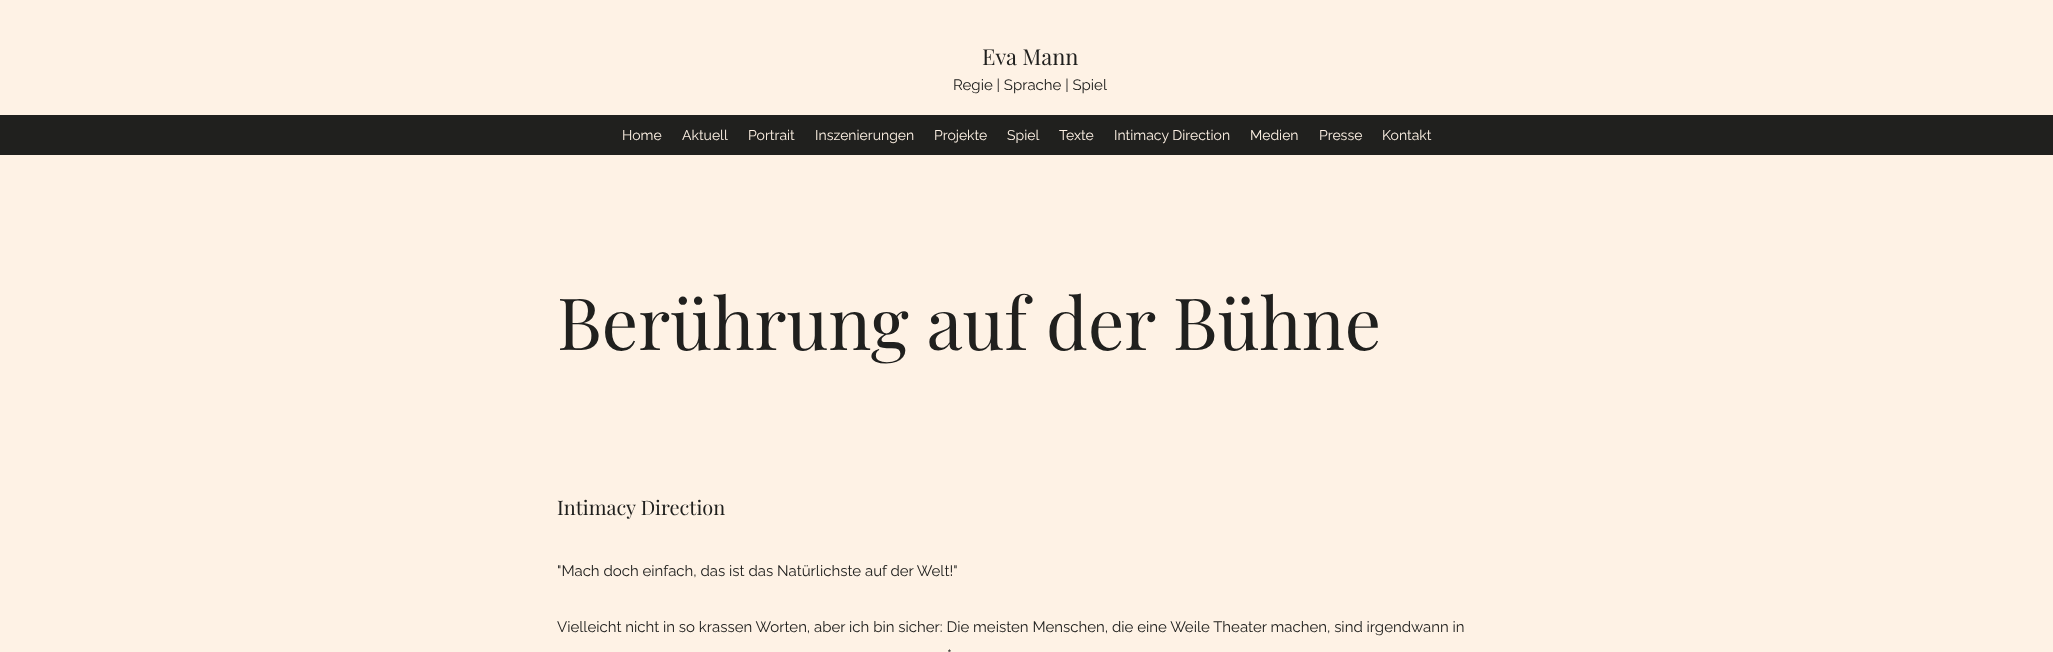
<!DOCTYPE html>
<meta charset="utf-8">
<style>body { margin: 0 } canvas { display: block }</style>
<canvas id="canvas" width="2053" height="652"></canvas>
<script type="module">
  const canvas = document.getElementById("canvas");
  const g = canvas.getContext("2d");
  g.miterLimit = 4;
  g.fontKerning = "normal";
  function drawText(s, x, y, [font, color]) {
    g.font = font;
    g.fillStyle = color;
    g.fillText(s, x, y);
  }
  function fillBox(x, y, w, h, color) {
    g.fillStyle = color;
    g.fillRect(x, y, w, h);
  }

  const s1 = ["22px Playfair Display", "#20201E"];
  const s2 = ["15px Raleway", "#20201E"];
  const s3 = ["14px Raleway", "#FEF2E5"];
  const s4 = ["72px Playfair Display", "#20201E"];
  const s5 = ["20px Playfair Display", "#20201E"];

  fillBox(0, 0, 2053, 652, "#FEF2E5");
  drawText("Eva Mann", 982, 65, s1);
  drawText("Regie | Sprache | Spiel", 953, 90, s2);
  fillBox(0, 115, 2053, 40, "#20201E");
  drawText("Home", 622, 140, s3);
  drawText("Aktuell", 682, 140, s3);
  drawText("Portrait", 748, 140, s3);
  drawText("Inszenierungen", 815, 140, s3);
  drawText("Projekte", 934, 140, s3);
  drawText("Spiel", 1007, 140, s3);
  drawText("Texte", 1059, 140, s3);
  drawText("Intimacy Direction", 1114, 140, s3);
  drawText("Medien", 1250, 140, s3);
  drawText("Presse", 1319, 140, s3);
  drawText("Kontakt", 1382, 140, s3);
  drawText("Berührung auf der Bühne", 557, 350, s4);
  drawText("Intimacy Direction", 557, 515, s5);
  drawText("\"Mach doch einfach, das ist das Natürlichste auf der Welt!\"", 557, 576, s2);
  drawText("Vielleicht nicht in so krassen Worten, aber ich bin sicher: Die meisten Menschen, die eine Weile Theater machen, sind irgendwann in", 557, 632, s2);
  drawText("*", 947, 660, s2);
</script>
